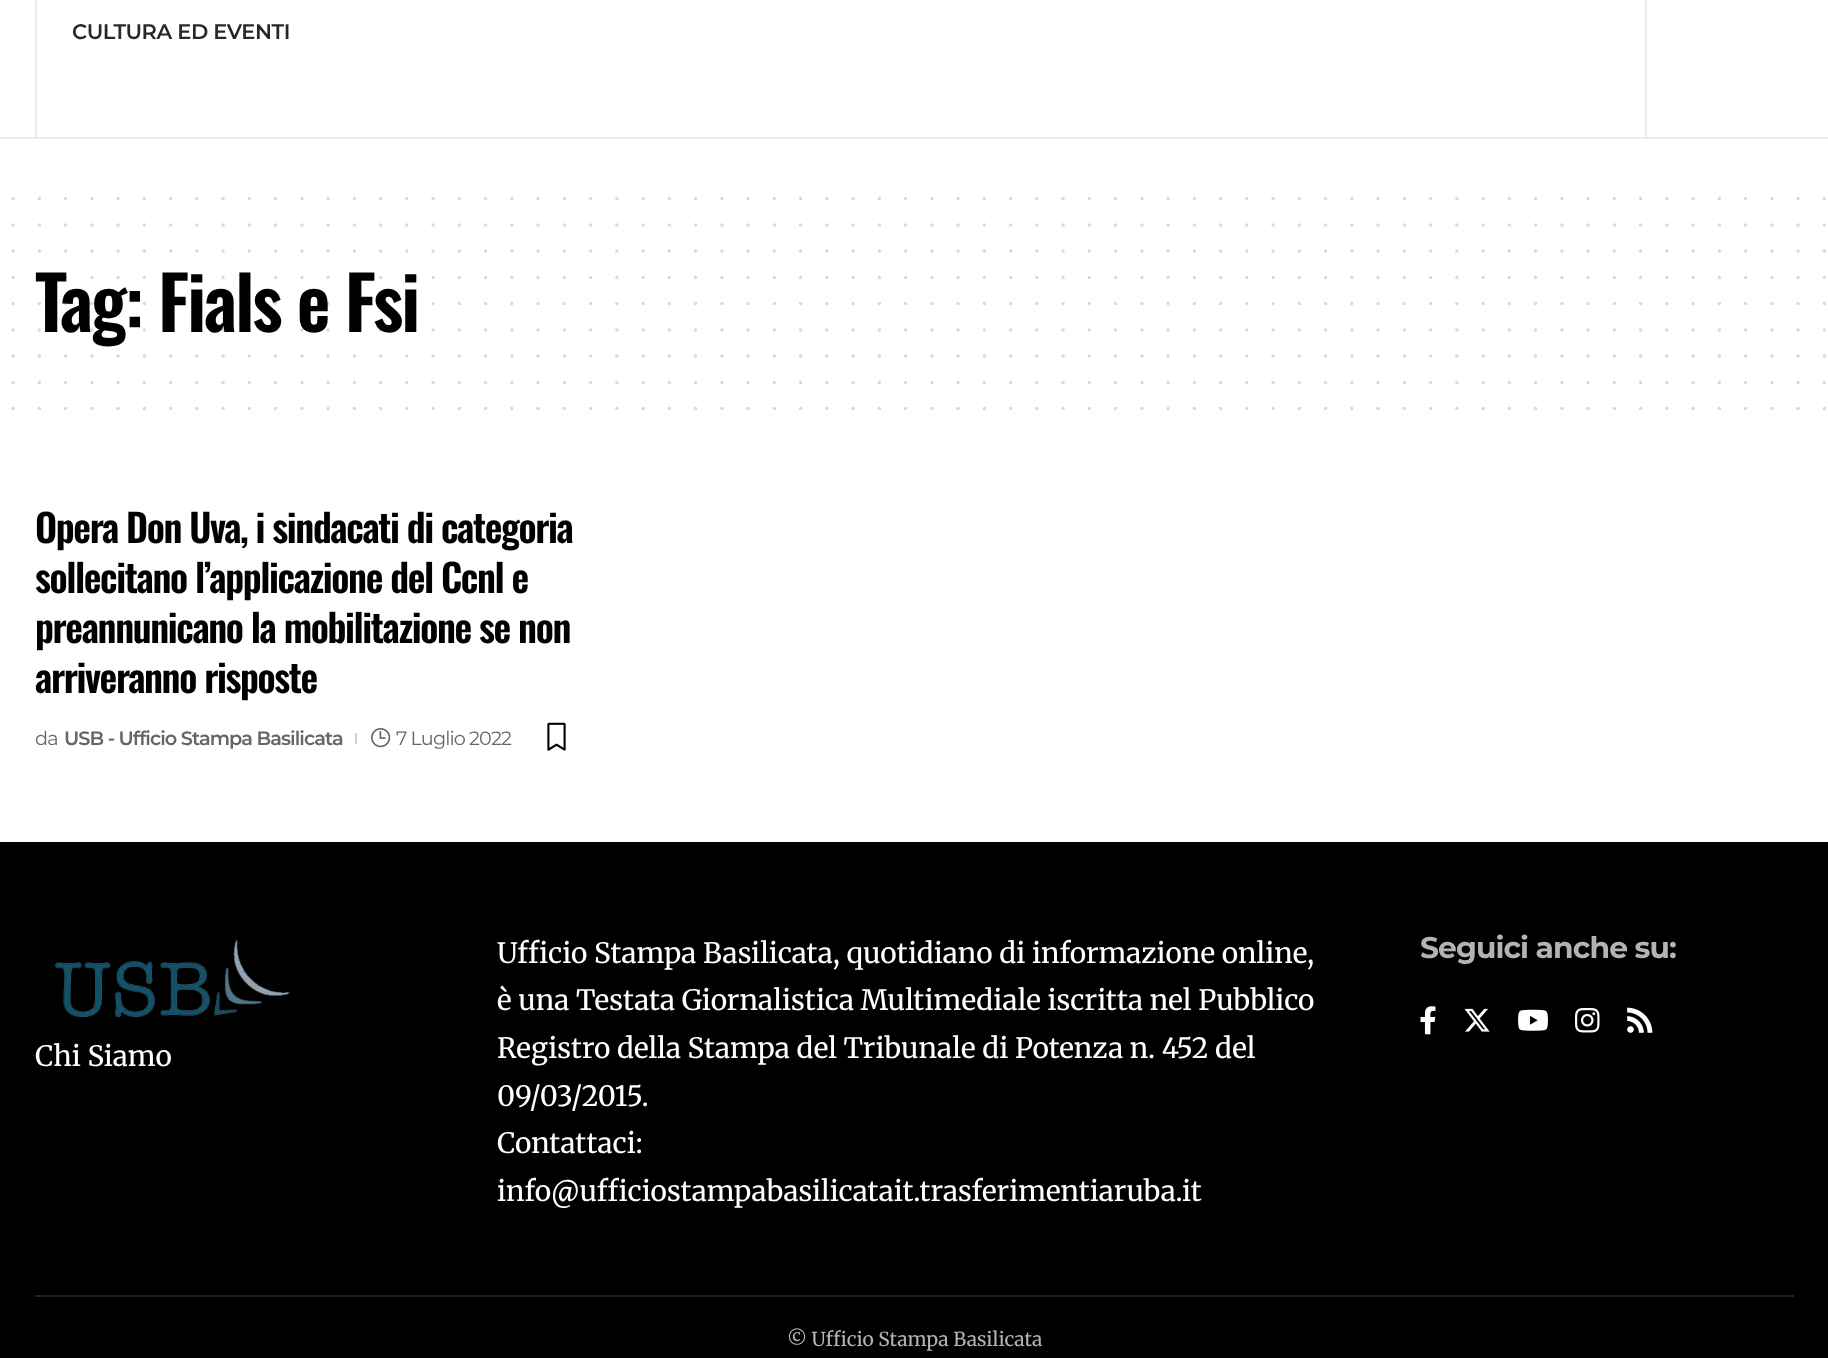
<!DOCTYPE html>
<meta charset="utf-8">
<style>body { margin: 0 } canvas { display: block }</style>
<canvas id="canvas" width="1828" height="1358"></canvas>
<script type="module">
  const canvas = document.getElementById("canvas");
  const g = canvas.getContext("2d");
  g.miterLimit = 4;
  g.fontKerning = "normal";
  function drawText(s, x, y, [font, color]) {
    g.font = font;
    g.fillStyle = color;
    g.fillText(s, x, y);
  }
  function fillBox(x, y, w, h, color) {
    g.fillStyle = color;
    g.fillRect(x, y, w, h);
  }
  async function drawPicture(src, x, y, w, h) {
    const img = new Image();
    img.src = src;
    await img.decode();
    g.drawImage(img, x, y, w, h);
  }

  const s1 = ["600 21px Montserrat", "#282828"];
  const s2 = ["600 73.5px Oswald", "#000000"];
  const s3 = ["600 38.5px Oswald", "#000000"];
  const s4 = ["19.25px Montserrat", "#666666"];
  const s5 = ["600 19.25px Montserrat", "#666666"];
  const s6 = ["28px Merriweather", "#FFFFFF"];
  const s7 = ["bold 29.75px Montserrat", "#B3B3B3"];
  const s8 = ["19.25px Merriweather", "#B3B3B3"];

  fillBox(0, 0, 1828, 1358, "#FFFFFF");
  fillBox(0, 137, 1828, 2, "#EDEDED");
  fillBox(35, 0, 2, 138, "#EDEDED");
  fillBox(35, 137, 2, 1, "#DEDEDE");
  g.letterSpacing = "-0.4px";
  drawText("CULTURA ED EVENTI", 72, 39, s1);
  fillBox(1645, 0, 2, 138, "#EDEDED");
  fillBox(1645, 137, 2, 1, "#DEDEDE");
  g.beginPath();
  g.moveTo(13.1, 198.6);
  g.lineTo(1824.7, 198.6);
  g.strokeStyle = "#D9D9D9";
  g.lineWidth = 3.5;
  g.lineCap = "round";
  g.setLineDash([0, 26.25]);
  g.stroke();
  g.beginPath();
  g.moveTo(13.1, 224.9);
  g.lineTo(1824.7, 224.9);
  g.stroke();
  g.beginPath();
  g.moveTo(13.1, 251.1);
  g.lineTo(1824.7, 251.1);
  g.stroke();
  g.letterSpacing = "-2.1px";
  drawText("Tag: Fials e Fsi", 35, 332, s2);
  g.beginPath();
  g.moveTo(13.1, 277.4);
  g.lineTo(1824.7, 277.4);
  g.strokeStyle = "rgba(0, 0, 0, 0.15)";
  g.stroke();
  g.beginPath();
  g.moveTo(13.1, 303.6);
  g.lineTo(1824.7, 303.6);
  g.stroke();
  g.beginPath();
  g.moveTo(13.1, 329.9);
  g.lineTo(1824.7, 329.9);
  g.stroke();
  g.beginPath();
  g.moveTo(13.1, 356.1);
  g.lineTo(1824.7, 356.1);
  g.strokeStyle = "#D9D9D9";
  g.stroke();
  g.beginPath();
  g.moveTo(13.1, 382.4);
  g.lineTo(1824.7, 382.4);
  g.stroke();
  g.beginPath();
  g.moveTo(13.1, 408.6);
  g.lineTo(1824.7, 408.6);
  g.stroke();
  g.letterSpacing = "-1.4px";
  drawText("Opera Don Uva, i sindacati di categoria", 35, 543, s3);
  drawText("sollecitano l’applicazione del Ccnl e", 35, 593, s3);
  drawText("preannunicano la mobilitazione se non", 35, 643, s3);
  drawText("arriveranno risposte", 35, 693, s3);
  g.letterSpacing = "-0.9px";
  drawText("da", 35, 745, s4);
  drawText("USB - Ufficio Stampa Basilicata", 64, 745, s5);
  fillBox(355, 733, 2, 11, "#D1D1D1");
  await drawPicture("pic1.png", 371, 728, 20, 20);
  drawText("7 Luglio 2022", 396, 745, s4);
  await drawPicture("pic2.png", 547, 722, 19, 29);
  fillBox(0, 842, 1828, 516, "#000000");
  await drawPicture("pic3.png", 55, 939, 235, 78);
  g.letterSpacing = "0px";
  drawText("Chi Siamo", 35, 1066, s6);
  drawText("Ufficio Stampa Basilicata, quotidiano di informazione online,", 497, 963, s6);
  drawText("è una Testata Giornalistica Multimediale iscritta nel Pubblico", 497, 1010, s6);
  drawText("Registro della Stampa del Tribunale di Potenza n. 452 del", 497, 1058, s6);
  drawText("09/03/2015.", 497, 1106, s6);
  drawText("Contattaci:", 497, 1153, s6);
  drawText("info@ufficiostampabasilicatait.trasferimentiaruba.it", 497, 1201, s6);
  g.letterSpacing = "-0.9px";
  drawText("Seguici anche su:", 1420, 958, s7);
  await drawPicture("pic4.png", 1420, 1006, 16, 29);
  await drawPicture("pic5.png", 1464, 1008, 26, 24);
  await drawPicture("pic6.png", 1518, 1009, 30, 22);
  await drawPicture("pic7.png", 1575, 1008, 25, 25);
  await drawPicture("pic8.png", 1627, 1007, 26, 26);
  fillBox(35, 1295, 1759, 2, "#222222");
  g.letterSpacing = "0px";
  drawText("© Ufficio Stampa Basilicata", 787, 1346, s8);
</script>
